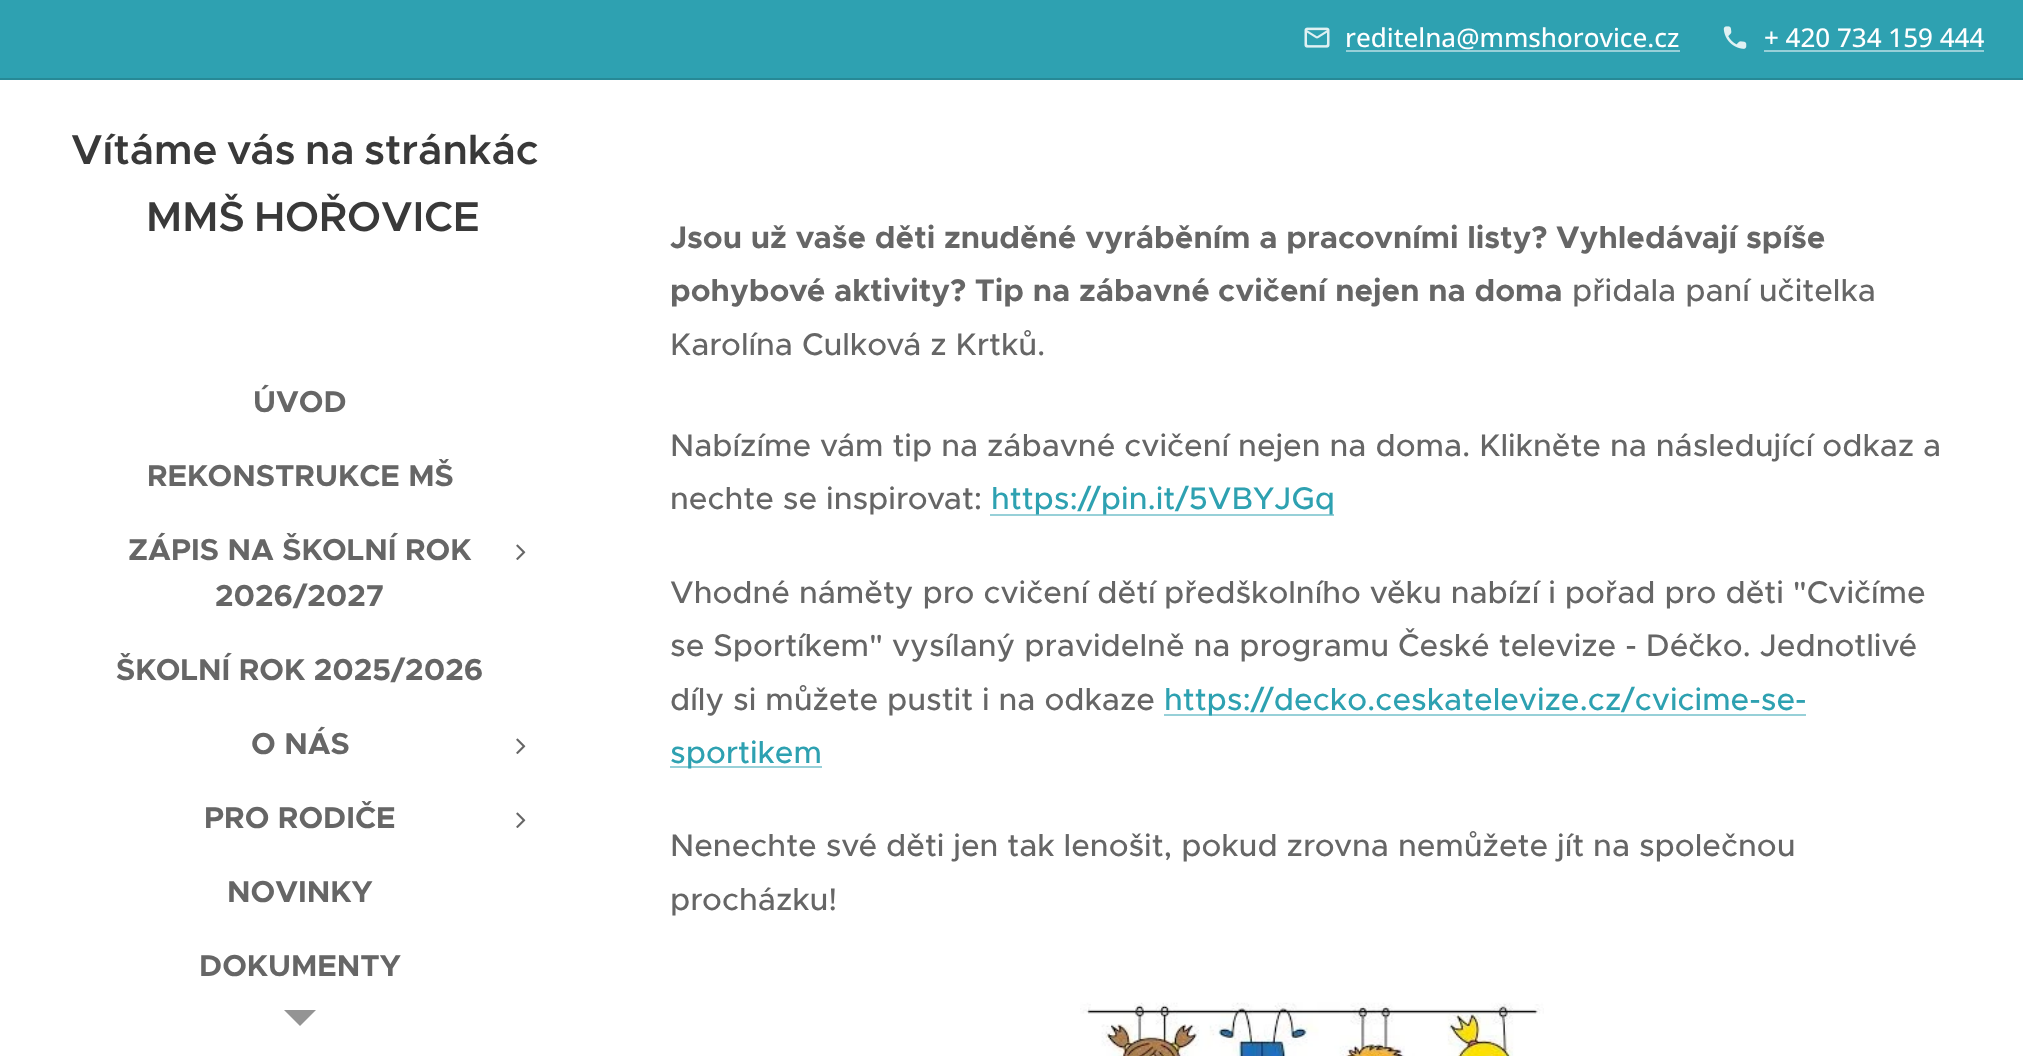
<!DOCTYPE html>
<meta charset="utf-8">
<style>body { margin: 0 } canvas { display: block }</style>
<canvas id="canvas" width="2023" height="1056"></canvas>
<script type="module">
  const canvas = document.getElementById("canvas");
  const g = canvas.getContext("2d");
  g.miterLimit = 4;
  g.fontKerning = "normal";
  function drawText(s, x, y, [font, color]) {
    g.font = font;
    g.fillStyle = color;
    g.fillText(s, x, y);
  }
  function fillBox(x, y, w, h, color) {
    g.fillStyle = color;
    g.fillRect(x, y, w, h);
  }
  async function drawPicture(src, x, y, w, h) {
    const img = new Image();
    img.src = src;
    await img.decode();
    g.drawImage(img, x, y, w, h);
  }

  const s1 = ["500 26px Open Sans", "#FFFFFF"];
  const s2 = ["600 42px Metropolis", "#393939"];
  const s3 = ["bold 30.4px Metropolis", "#666666"];
  const s4 = ["bold 31.4px Metropolis", "#666666"];
  const s5 = ["500 31.4px Metropolis", "#666666"];
  const s6 = ["500 31.4px Metropolis", "#2EA1B1"];

  fillBox(0, 0, 2023, 1056, "#FFFFFF");
  fillBox(0, 0, 2023, 78, "#2EA1B1");
  await drawPicture("pic1.png", 1304, 27, 26, 21);
  drawText("reditelna@mmshorovice.cz", 1345, 47, s1);
  fillBox(1346, 50, 334, 2, "#97D0D8");
  await drawPicture("pic2.png", 1723, 26, 24, 23);
  drawText("+ 420 734 159 444", 1764, 47, s1);
  fillBox(1764, 50, 220, 2, "#97D0D8");
  fillBox(0, 78, 2023, 2, "#278996");
  g.wordSpacing = "-2.5px";
  drawText("Vítáme vás na stránkác", 71, 164, s2);
  drawText("MMŠ HOŘOVICE", 146, 231, s2);
  g.wordSpacing = "0px";
  drawText("ÚVOD", 253, 412, s3);
  drawText("REKONSTRUKCE MŠ", 147, 486, s3);
  drawText("ZÁPIS NA ŠKOLNÍ ROK", 128, 560, s3);
  drawText("2026/2027", 215, 606, s3);
  await drawPicture("pic3.png", 516, 544, 10, 16);
  drawText("ŠKOLNÍ ROK 2025/2026", 116, 680, s3);
  drawText("O NÁS", 251, 754, s3);
  await drawPicture("pic3.png", 516, 738, 10, 16);
  drawText("PRO RODIČE", 204, 828, s3);
  await drawPicture("pic3.png", 516, 812, 10, 16);
  drawText("NOVINKY", 227, 902, s3);
  drawText("DOKUMENTY", 199, 976, s3);
  g.fillStyle = "#949494";
  g.beginPath();
  g.moveTo(284, 1010);
  g.lineTo(316, 1010);
  g.lineTo(300, 1026);
  g.closePath();
  g.fill();
  drawText("Jsou už vaše děti znuděné vyráběním a pracovními listy? Vyhledávají spíše", 670, 248, s4);
  drawText("pohybové aktivity? Tip na zábavné", 670, 301, s4);
  drawText("cvičení nejen na doma", 1218, 301, s4);
  drawText("přidala paní učitelka", 1572, 301, s5);
  drawText("Karolína Culková z Krtků.", 670, 355, s5);
  drawText("Nabízíme vám tip na zábavné cvičení nejen na doma. Klikněte na následující odkaz a", 670, 456, s5);
  drawText("nechte se inspirovat:", 670, 509, s5);
  fillBox(990, 514, 344, 2, "#97D0D8");
  drawText("https://pin.it/5VBYJGq", 991, 509, s6);
  drawText("Vhodné náměty pro cvičení dětí", 670, 603, s5);
  drawText("předškolního věku nabízí i pořad pro děti \"Cvičíme", 1164, 603, s5);
  drawText("se Sportíkem\" vysílaný pravidelně na programu České televize - Déčko. Jednotlivé", 670, 656, s5);
  drawText("díly si můžete pustit i na odkaze", 670, 710, s5);
  fillBox(1164, 714, 642, 2, "#97D0D8");
  drawText("https://decko.ceskatelevize.cz/cvicime-se-", 1164, 710, s6);
  fillBox(670, 766, 152, 2, "#97D0D8");
  drawText("sportikem", 670, 763, s6);
  drawText("Nenechte své děti jen tak lenošit, pokud zrovna nemůžete jít na společnou", 670, 856, s5);
  drawText("procházku!", 670, 910, s5);
  await drawPicture("pic4.png", 1080, 1002, 464, 54);
</script>
